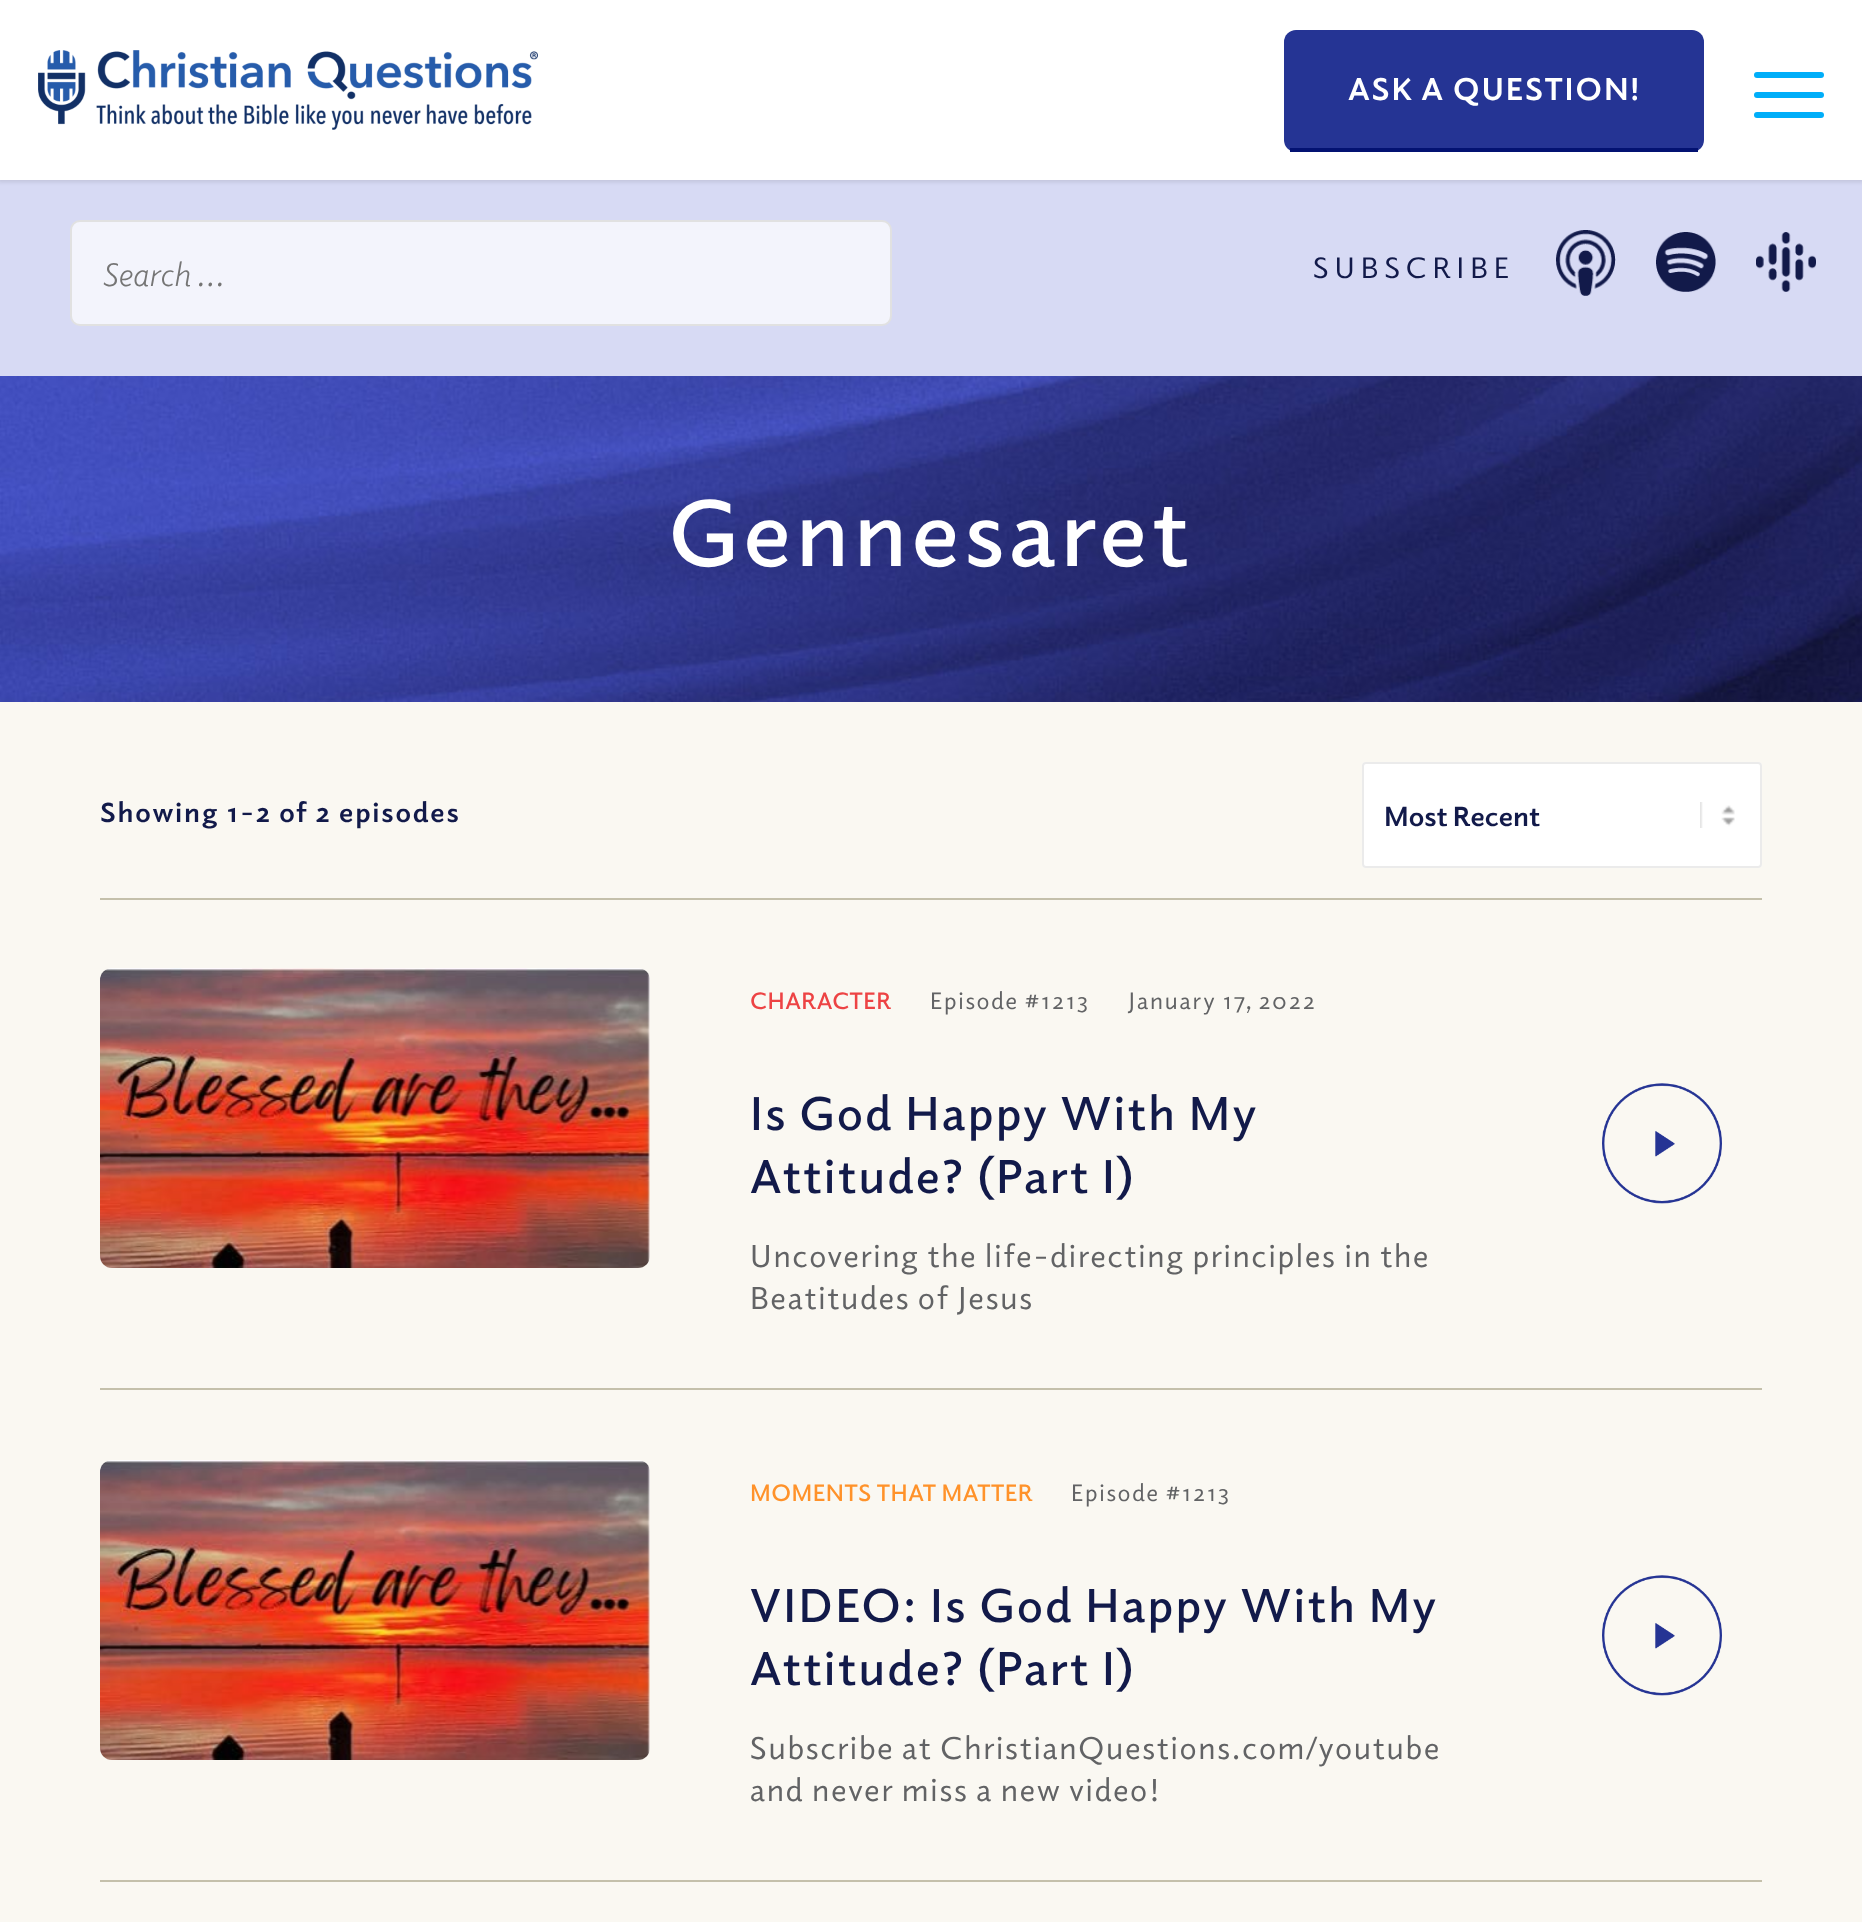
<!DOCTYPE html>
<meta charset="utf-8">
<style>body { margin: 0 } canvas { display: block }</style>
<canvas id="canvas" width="1862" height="1922"></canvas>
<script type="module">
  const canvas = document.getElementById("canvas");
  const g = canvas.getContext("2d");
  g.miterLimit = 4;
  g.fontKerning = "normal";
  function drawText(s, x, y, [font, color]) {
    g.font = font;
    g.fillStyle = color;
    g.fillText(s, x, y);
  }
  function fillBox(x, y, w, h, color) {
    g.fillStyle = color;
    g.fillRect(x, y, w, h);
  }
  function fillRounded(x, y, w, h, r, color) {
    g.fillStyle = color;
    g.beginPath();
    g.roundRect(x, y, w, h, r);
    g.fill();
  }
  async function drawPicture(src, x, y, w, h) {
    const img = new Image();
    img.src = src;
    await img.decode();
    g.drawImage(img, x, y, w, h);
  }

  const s1 = ["bold 32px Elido", "#FFFFFF"];
  const s2 = ["italic 33px Elido", "#757575"];
  const s3 = ["30px Elido", "#121A4A"];
  const s4 = ["600 96px Elido", "#FFFFFF"];
  const s5 = ["bold 28px Elido", "#121A4A"];
  const s6 = ["600 24px Elido", "#ED4344"];
  const s7 = ["24px Elido", "#626365"];
  const s8 = ["600 48px Elido", "#121A4A"];
  const s9 = ["32px Elido", "#626365"];
  const s10 = ["600 24px Elido", "#FF922A"];

  fillBox(0, 0, 1862, 1922, "#FFFFFF");
  fillBox(0, 180, 1862, 196, "#D7DAF4");
  g.fillStyle = "rgba(0, 0, 0, 0.1)";
  g.filter = "blur(2px)";
  g.beginPath();
  g.rect(-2, -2, 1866, 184);
  g.fill();
  g.filter = "none";
  fillBox(0, 0, 1862, 180, "#FFFFFF");
  await drawPicture("pic1.png", 38, 50, 500, 80);
  fillRounded(1284, 30, 420, 122, 12, "#253494");
  fillBox(1290, 148, 408, 4, "#031272");
  g.letterSpacing = "1.8px";
  drawText("ASK A QUESTION!", 1348, 100, s1);
  fillRounded(1754, 92, 70, 6, 3, "#00AEF9");
  fillRounded(1754, 72, 70, 6, 3, "#00AEF9");
  fillRounded(1754, 112, 70, 6, 3, "#00AEF9");
  g.fillStyle = "#F3F4FC";
  g.beginPath();
  g.roundRect(71, 221, 820, 104, 9);
  g.fill();
  g.strokeStyle = "#E1E1E1";
  g.lineWidth = 2;
  g.stroke();
  g.letterSpacing = "0px";
  drawText("Search …", 102, 286, s2);
  g.letterSpacing = "6px";
  drawText("SUBSCRIBE", 1313, 278, s3);
  await drawPicture("pic2.png", 1556, 230, 60, 66);
  await drawPicture("pic3.png", 1656, 232, 60, 60);
  await drawPicture("pic4.png", 1756, 232, 60, 60);
  await drawPicture("pic5.png", 0, 376, 1862, 326);
  g.letterSpacing = "4.75px";
  drawText("Gennesaret", 668, 566, s4);
  fillBox(0, 702, 1862, 1220, "#FAF8F2");
  fillBox(100, 898, 1662, 2, "#C4C0AB");
  g.letterSpacing = "1.8px";
  drawText("Showing 1-2 of 2 episodes", 100, 822, s5);
  fillRounded(1362, 762, 400, 106, 4, "#FFFFFF");
  await drawPicture("pic6.png", 1700, 802, 35, 26);
  g.beginPath();
  g.roundRect(1363, 763, 398, 104, 3);
  g.strokeStyle = "#EBEBEB";
  g.stroke();
  g.letterSpacing = "0px";
  drawText("Most Recent", 1384, 826, s5);
  fillBox(100, 1388, 1662, 2, "#C4C0AB");
  await drawPicture("pic7.png", 100, 968, 550, 300);
  g.letterSpacing = "0.5px";
  drawText("CHARACTER", 750, 1009, s6);
  g.letterSpacing = "1.8px";
  drawText("Episode #1213", 930, 1009, s7);
  drawText("January 17, 2022", 1128, 1009, s7);
  g.letterSpacing = "2.4px";
  drawText("Is God Happy With My", 750, 1130, s8);
  drawText("Attitude? (Part I)", 750, 1193, s8);
  g.letterSpacing = "1.8px";
  drawText("Uncovering the life-directing principles in the", 750, 1267, s9);
  drawText("Beatitudes of Jesus", 750, 1309, s9);
  await drawPicture("pic8.png", 1602, 1083, 120, 121);
  fillBox(100, 1880, 1662, 2, "#C4C0AB");
  await drawPicture("pic7.png", 100, 1460, 550, 300);
  g.letterSpacing = "0.5px";
  drawText("MOMENTS THAT MATTER", 750, 1501, s10);
  g.letterSpacing = "1.8px";
  drawText("Episode #1213", 1071, 1501, s7);
  g.letterSpacing = "2.4px";
  drawText("VIDEO: Is God Happy With My", 750, 1622, s8);
  drawText("Attitude? (Part I)", 750, 1685, s8);
  g.letterSpacing = "1.8px";
  drawText("Subscribe at ChristianQuestions.com/youtube", 750, 1759, s9);
  drawText("and never miss a new video!", 750, 1801, s9);
  await drawPicture("pic8.png", 1602, 1575, 120, 121);
</script>
